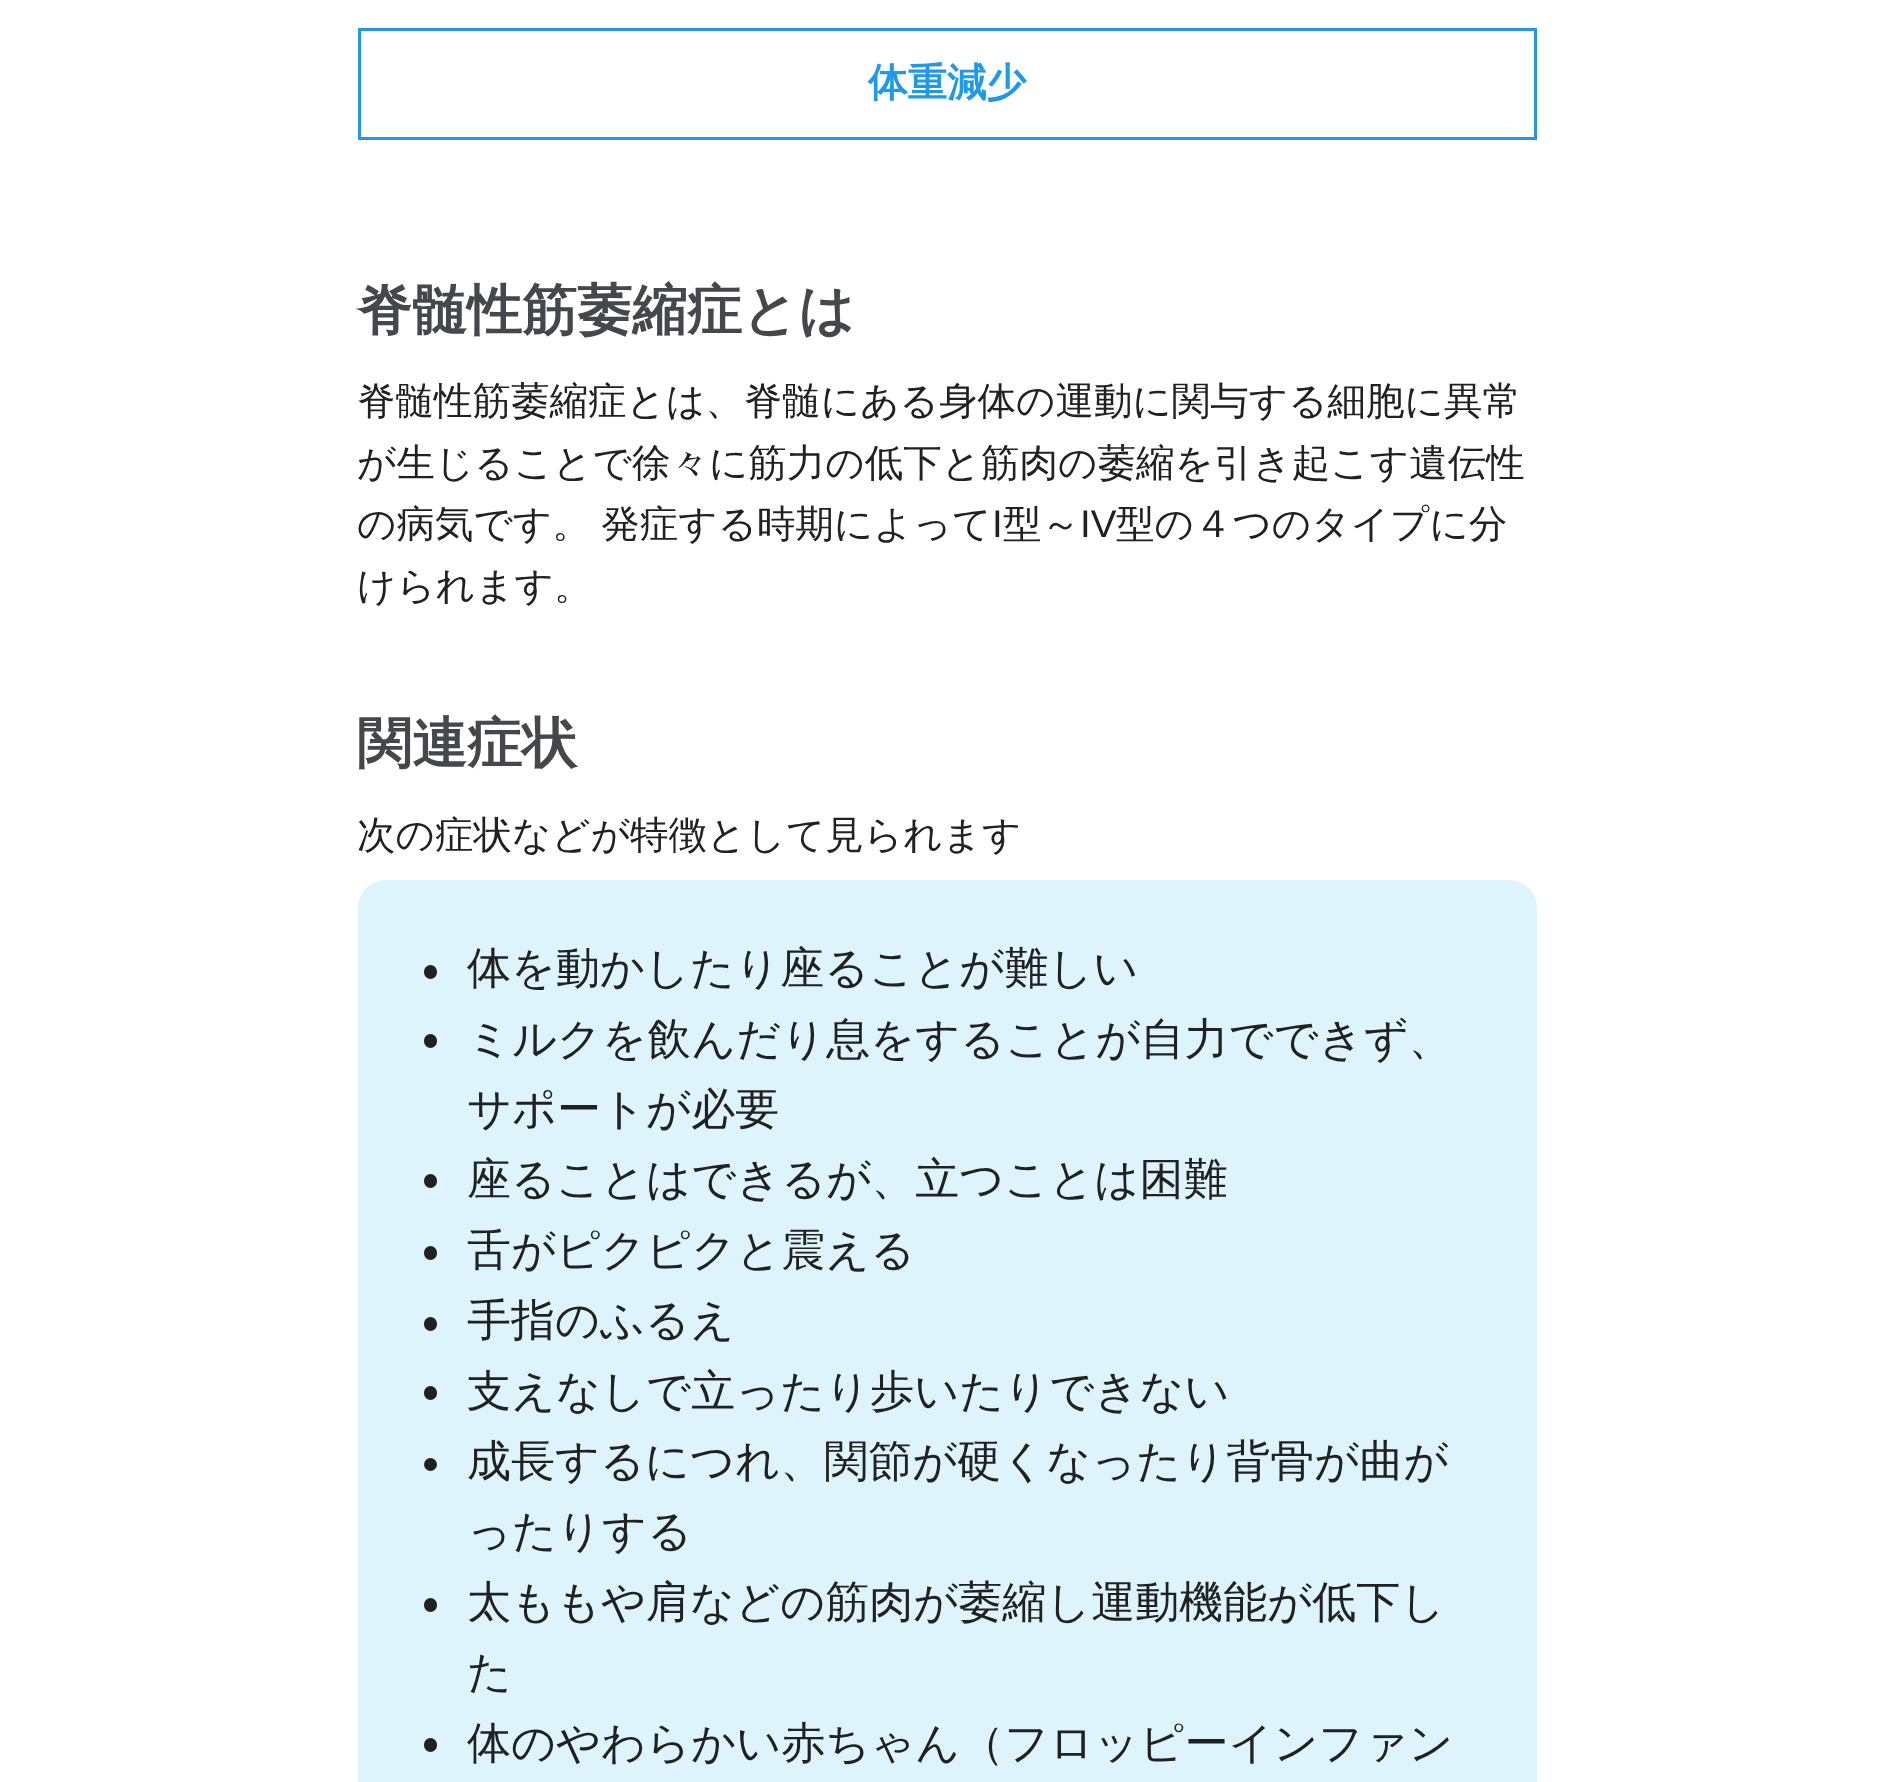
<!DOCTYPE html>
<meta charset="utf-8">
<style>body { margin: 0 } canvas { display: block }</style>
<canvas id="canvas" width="1894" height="1782"></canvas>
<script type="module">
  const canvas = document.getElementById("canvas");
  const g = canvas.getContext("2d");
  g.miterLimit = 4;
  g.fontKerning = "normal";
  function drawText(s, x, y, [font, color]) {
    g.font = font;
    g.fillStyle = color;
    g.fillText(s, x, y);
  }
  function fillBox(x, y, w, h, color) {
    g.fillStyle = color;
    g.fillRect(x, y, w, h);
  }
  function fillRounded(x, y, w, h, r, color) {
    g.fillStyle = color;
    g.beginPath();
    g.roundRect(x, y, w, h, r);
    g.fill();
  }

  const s1 = ["bold 39.5px WenQuanYi Zen Hei", "#2199E8"];
  const s2 = ["bold 55px WenQuanYi Zen Hei", "#45474C"];
  const s3 = ["500 38.5px WenQuanYi Zen Hei", "#212121"];
  const s4 = ["38.5px Liberation Sans", "#212121"];
  const s5 = ["500 44px WenQuanYi Zen Hei", "#212121"];

  fillBox(0, 0, 1894, 1782, "#FFFFFF");
  g.strokeStyle = "#2199E8";
  g.lineWidth = 3;
  g.strokeRect(359.5, 29.5, 1176, 109);
  drawText("体重減少", 868, 96, s1);
  drawText("脊髄性筋萎縮症とは", 357, 329, s2);
  drawText("脊髄性筋萎縮症とは、脊髄にある身体の運動に関与する細胞に異常", 357, 414, s3);
  drawText("が生じることで徐々に筋力の低下と筋肉の萎縮を引き起こす遺伝性", 357, 476, s3);
  g.wordSpacing = "-1px";
  drawText("の病気です。 発症する時期によって", 357, 537, s3);
  g.wordSpacing = "0px";
  drawText("I", 992, 537, s4);
  drawText("型～", 1003, 537, s3);
  drawText("IV", 1080, 537, s4);
  drawText("型の４つのタイプに分", 1116, 537, s3);
  drawText("けられます。", 357, 599, s3);
  drawText("関連症状", 357, 762, s2);
  drawText("次の症状などが特徴として見られます", 357, 848, s3);
  fillRounded(358, 880, 1179, 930, 28, "#DDF4FC");
  fillRounded(424, 965, 13, 14, 6.5, "#212121");
  drawText("体を動かしたり座ることが難しい", 467, 983, s5);
  fillRounded(424, 1034, 13, 14, 6.5, "#212121");
  drawText("ミルクを飲んだり息をすることが自力でできず、", 467, 1054, s5);
  drawText("サポートが必要", 467, 1124, s5);
  fillRounded(424, 1174, 13, 14, 6.5, "#212121");
  drawText("座ることはできるが、立つことは困難", 467, 1194, s5);
  fillRounded(424, 1246, 13, 14, 6.5, "#212121");
  drawText("舌がピクピクと震える", 467, 1265, s5);
  fillRounded(424, 1317, 13, 14, 6.5, "#212121");
  drawText("手指のふるえ", 467, 1335, s5);
  fillRounded(424, 1386, 13, 14, 6.5, "#212121");
  drawText("支えなしで立ったり歩いたりできない", 467, 1406, s5);
  g.beginPath();
  g.arc(430.5, 1464.5, 6.5, 0, Math.PI * 2);
  g.fill();
  drawText("成長するにつれ、関節が硬くなったり背骨が曲が", 467, 1476, s5);
  drawText("ったりする", 467, 1546, s5);
  fillRounded(424, 1598, 13, 14, 6.5, "#212121");
  drawText("太ももや肩などの筋肉が萎縮し運動機能が低下し", 467, 1617, s5);
  drawText("た", 467, 1687, s5);
  fillRounded(424, 1738, 13, 14, 6.5, "#212121");
  drawText("体のやわらかい赤ちゃん（フロッピーインファン", 467, 1758, s5);
</script>
